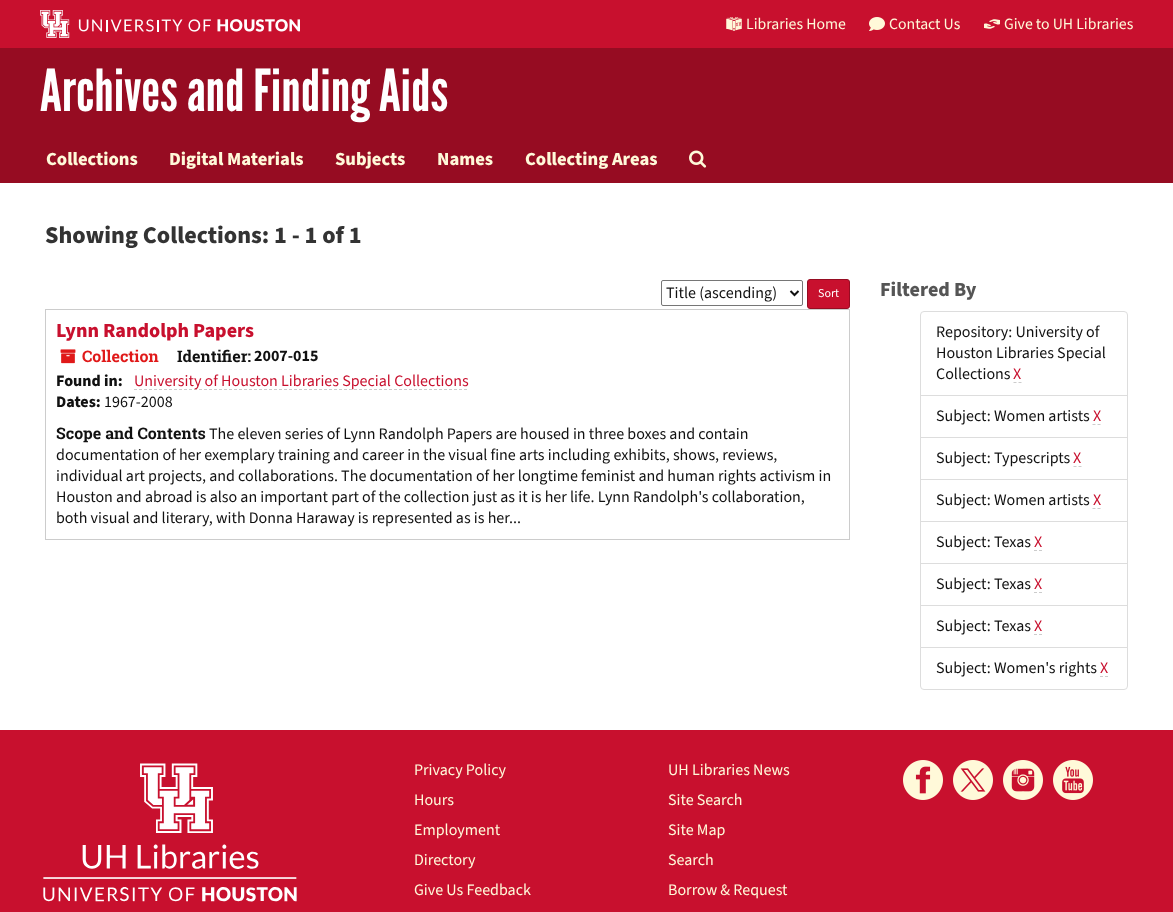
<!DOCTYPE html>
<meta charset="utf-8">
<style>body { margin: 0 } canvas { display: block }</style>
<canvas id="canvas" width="1173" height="912"></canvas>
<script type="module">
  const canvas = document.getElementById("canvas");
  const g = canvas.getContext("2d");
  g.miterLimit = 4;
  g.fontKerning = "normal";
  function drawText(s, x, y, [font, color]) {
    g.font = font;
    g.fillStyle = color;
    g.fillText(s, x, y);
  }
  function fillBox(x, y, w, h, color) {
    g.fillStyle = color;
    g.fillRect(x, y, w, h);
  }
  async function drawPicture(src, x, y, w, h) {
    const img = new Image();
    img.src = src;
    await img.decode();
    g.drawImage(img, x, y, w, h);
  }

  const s1 = ["15.75px 'Source Sans 3'", "#FFF9D9"];
  const s2 = ["58px League Gothic", "#FFFFFF"];
  const s3 = ["800 18.5px 'Source Sans 3'", "#FFF9D9"];
  const s4 = ["800 24px 'Source Sans 3'", "#333333"];
  const s5 = ["16px 'Source Sans 3'", "#111111"];
  const s6 = ["12px 'Source Sans 3'", "#FFFFFF"];
  const s7 = ["800 20px 'Source Sans 3'", "#C8102E"];
  const s8 = ["bold 16px Roboto Slab", "#E01919"];
  const s9 = ["bold 16px Roboto Slab", "#111111"];
  const s10 = ["bold 16px 'Source Sans 3'", "#111111"];
  const s11 = ["800 16px 'Source Sans 3'", "#111111"];
  const s12 = ["16px 'Source Sans 3'", "#C8102E"];
  const s13 = ["800 20px 'Source Sans 3'", "#555555"];
  const s14 = ["16px 'Source Sans 3'", "#FFF9D9"];

  fillBox(0, 0, 1173, 912, "#FFFFFF");
  fillBox(0, 0, 1173, 48, "#C8102E");
  await drawPicture("pic1.png", 40, 10, 260, 28);
  await drawPicture("pic2.png", 726, 17, 16, 14);
  drawText("Libraries Home", 746, 29, s1);
  await drawPicture("pic3.png", 869, 17, 16, 14);
  drawText("Contact Us", 889, 29, s1);
  await drawPicture("pic4.png", 984, 19, 16, 10);
  drawText("Give to UH Libraries", 1004, 29, s1);
  fillBox(0, 48, 1173, 135, "#960C22");
  drawText("Archives and Finding Aids", 40, 111, s2);
  drawText("Collections", 46, 165, s3);
  drawText("Digital Materials", 169, 165, s3);
  drawText("Subjects", 335, 165, s3);
  drawText("Names", 437, 165, s3);
  drawText("Collecting Areas", 525, 165, s3);
  await drawPicture("pic5.png", 689, 150, 18, 18);
  drawText("Showing Collections: 1 - 1 of 1", 45, 243, s4);
  g.beginPath();
  g.roundRect(661.5, 280.5, 141, 25, 1.5);
  g.strokeStyle = "#767676";
  g.stroke();
  g.beginPath();
  g.moveTo(790.5, 291);
  g.lineTo(794.5, 295);
  g.lineTo(798.5, 291);
  g.strokeStyle = "#111111";
  g.lineWidth = 2;
  g.stroke();
  drawText("Title (ascending)", 666, 298, s5);
  g.fillStyle = "#C8102E";
  g.beginPath();
  g.roundRect(807.5, 279.5, 42, 29, 2.5);
  g.fill();
  g.strokeStyle = "#960C22";
  g.lineWidth = 1;
  g.stroke();
  drawText("Sort", 818, 297, s6);
  g.strokeStyle = "#CCCCCC";
  g.strokeRect(45.5, 309.5, 804, 230);
  drawText("Lynn Randolph Papers", 56, 337, s7);
  await drawPicture("pic6.png", 60, 349, 16, 15);
  drawText("Collection", 82, 362, s8);
  drawText("Identifier:", 177, 362, s9);
  drawText("2007-015", 254, 361, s10);
  drawText("Found in:", 56, 386, s11);
  g.beginPath();
  g.moveTo(134, 389.5);
  g.lineTo(468.5, 389.5);
  g.setLineDash([3, 2]);
  g.stroke();
  drawText("University of Houston Libraries Special Collections", 134, 386, s12);
  drawText("Dates:", 56, 407, s11);
  drawText("1967-2008", 104, 407, s5);
  drawText("Scope and Contents", 56, 439, s9);
  drawText("The eleven series of Lynn Randolph Papers are housed in three boxes and contain", 209, 439, s5);
  drawText("documentation of her exemplary training and career in the visual fine arts including exhibits, shows, reviews,", 56, 460, s5);
  drawText("individual art projects, and collaborations. The documentation of her longtime feminist and human rights activism in", 56, 481, s5);
  drawText("Houston and abroad is also an important part of the collection just as it is her life. Lynn Randolph's collaboration,", 56, 502, s5);
  drawText("both visual and literary, with Donna Haraway is represented as is her...", 56, 523, s5);
  drawText("Filtered By", 880, 296, s13);
  g.beginPath();
  g.roundRect(920.5, 311.5, 207, 84, [3.5, 3.5, 0, 0]);
  g.strokeStyle = "#DDDDDD";
  g.setLineDash([]);
  g.stroke();
  drawText("Repository: University of", 936, 337, s5);
  drawText("Houston Libraries Special", 936, 358, s5);
  drawText("Collections", 936, 379, s5);
  drawText("X", 1013, 379, s12);
  g.beginPath();
  g.moveTo(1013.5, 382.5);
  g.lineTo(1016.5, 382.5);
  g.moveTo(1018.5, 382.5);
  g.lineTo(1021.5, 382.5);
  g.strokeStyle = "#CCCCCC";
  g.stroke();
  g.strokeStyle = "#DDDDDD";
  g.strokeRect(920.5, 395.5, 207, 42);
  drawText("Subject: Women artists", 936, 421, s5);
  g.beginPath();
  g.moveTo(1092.5, 424.5);
  g.lineTo(1095.5, 424.5);
  g.moveTo(1097.5, 424.5);
  g.lineTo(1100.5, 424.5);
  g.strokeStyle = "#CCCCCC";
  g.stroke();
  drawText("X", 1093, 421, s12);
  g.strokeStyle = "#DDDDDD";
  g.strokeRect(920.5, 437.5, 207, 42);
  drawText("Subject: Typescripts", 936, 463, s5);
  g.beginPath();
  g.moveTo(1073.5, 466.5);
  g.lineTo(1076.5, 466.5);
  g.moveTo(1078.5, 466.5);
  g.lineTo(1081.5, 466.5);
  g.strokeStyle = "#CCCCCC";
  g.stroke();
  drawText("X", 1073, 463, s12);
  g.strokeStyle = "#DDDDDD";
  g.strokeRect(920.5, 479.5, 207, 42);
  drawText("Subject: Women artists", 936, 505, s5);
  g.beginPath();
  g.moveTo(1092.5, 508.5);
  g.lineTo(1095.5, 508.5);
  g.moveTo(1097.5, 508.5);
  g.lineTo(1100.5, 508.5);
  g.strokeStyle = "#CCCCCC";
  g.stroke();
  drawText("X", 1093, 505, s12);
  g.strokeStyle = "#DDDDDD";
  g.strokeRect(920.5, 521.5, 207, 42);
  drawText("Subject: Texas", 936, 547, s5);
  g.beginPath();
  g.moveTo(1034, 550.5);
  g.lineTo(1037, 550.5);
  g.moveTo(1039, 550.5);
  g.lineTo(1042, 550.5);
  g.strokeStyle = "#CCCCCC";
  g.stroke();
  drawText("X", 1034, 547, s12);
  g.strokeStyle = "#DDDDDD";
  g.strokeRect(920.5, 563.5, 207, 42);
  drawText("Subject: Texas", 936, 589, s5);
  g.beginPath();
  g.moveTo(1034, 592.5);
  g.lineTo(1037, 592.5);
  g.moveTo(1039, 592.5);
  g.lineTo(1042, 592.5);
  g.strokeStyle = "#CCCCCC";
  g.stroke();
  drawText("X", 1034, 589, s12);
  g.strokeStyle = "#DDDDDD";
  g.strokeRect(920.5, 605.5, 207, 42);
  drawText("Subject: Texas", 936, 631, s5);
  g.beginPath();
  g.moveTo(1034, 634.5);
  g.lineTo(1037, 634.5);
  g.moveTo(1039, 634.5);
  g.lineTo(1042, 634.5);
  g.strokeStyle = "#CCCCCC";
  g.stroke();
  drawText("X", 1034, 631, s12);
  g.fillStyle = "#FFFFFF";
  g.beginPath();
  g.roundRect(920.5, 647.5, 207, 42, [0, 0, 3.5, 3.5]);
  g.fill();
  g.strokeStyle = "#DDDDDD";
  g.stroke();
  drawText("Subject: Women's rights", 936, 673, s5);
  g.beginPath();
  g.moveTo(1100, 676.5);
  g.lineTo(1103, 676.5);
  g.moveTo(1105, 676.5);
  g.lineTo(1108, 676.5);
  g.strokeStyle = "#CCCCCC";
  g.stroke();
  drawText("X", 1100, 673, s12);
  fillBox(0, 730, 1173, 182, "#C8102E");
  await drawPicture("pic7.png", 43, 763, 254, 139);
  drawText("Privacy Policy", 414, 775, s14);
  drawText("UH Libraries News", 668, 775, s14);
  drawText("Hours", 414, 805, s14);
  drawText("Site Search", 668, 805, s14);
  drawText("Employment", 414, 835, s14);
  drawText("Site Map", 668, 835, s14);
  drawText("Directory", 414, 865, s14);
  drawText("Search", 668, 865, s14);
  drawText("Give Us Feedback", 414, 895, s14);
  drawText("Borrow & Request", 668, 895, s14);
  await drawPicture("pic8.png", 903, 760, 40, 40);
  await drawPicture("pic9.png", 953, 760, 40, 40);
  await drawPicture("pic10.png", 1003, 760, 40, 40);
  await drawPicture("pic11.png", 1053, 760, 40, 40);
</script>
